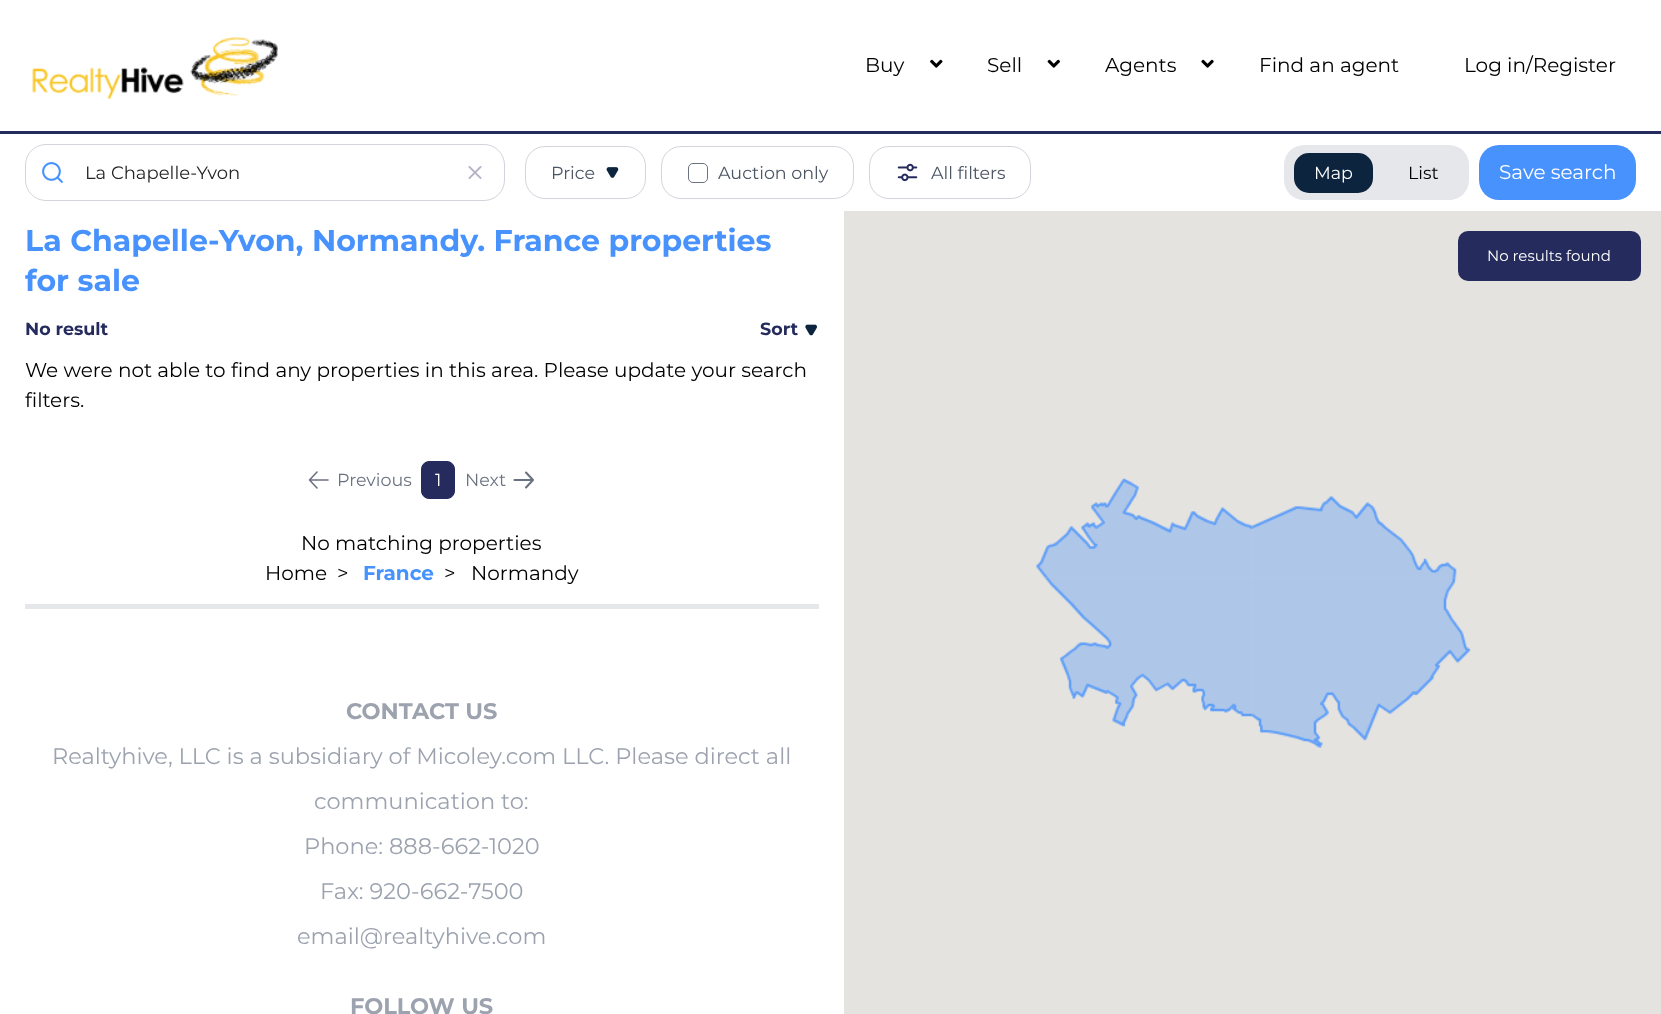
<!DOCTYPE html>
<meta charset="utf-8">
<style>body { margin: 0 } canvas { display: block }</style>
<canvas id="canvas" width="1661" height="1014"></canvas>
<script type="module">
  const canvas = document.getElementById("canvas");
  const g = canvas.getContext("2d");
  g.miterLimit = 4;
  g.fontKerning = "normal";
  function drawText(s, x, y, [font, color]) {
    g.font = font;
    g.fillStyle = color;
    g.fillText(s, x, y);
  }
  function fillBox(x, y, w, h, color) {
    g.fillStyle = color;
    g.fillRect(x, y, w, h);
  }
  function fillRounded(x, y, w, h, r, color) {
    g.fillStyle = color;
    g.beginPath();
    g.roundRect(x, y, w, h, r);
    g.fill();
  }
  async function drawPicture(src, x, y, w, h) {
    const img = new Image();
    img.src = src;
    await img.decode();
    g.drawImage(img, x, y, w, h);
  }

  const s1 = ["20px Montserrat", "#000000"];
  const s2 = ["18px Montserrat", "#262627"];
  const s3 = ["17.5px Montserrat", "#4B5563"];
  const s4 = ["17.5px Montserrat", "#FFFFFF"];
  const s5 = ["17.5px Montserrat", "#000000"];
  const s6 = ["20px Montserrat", "#FFFFFF"];
  const s7 = ["bold 30px Montserrat", "#4792FD"];
  const s8 = ["bold 17.5px Montserrat", "#252B5C"];
  const s9 = ["17.5px Montserrat", "#6B7280"];
  const s10 = ["bold 20px Montserrat", "#4792FD"];
  const s11 = ["bold 22.5px Montserrat", "#9CA3AF"];
  const s12 = ["22.5px Montserrat", "#9CA3AF"];
  const s13 = ["15px Montserrat", "#FFFFFF"];

  fillBox(0, 0, 1661, 1014, "#FFFFFF");
  fillBox(0, 131, 1661, 3, "#252B5C");
  await drawPicture("pic1.png", 32, 37, 246, 63);
  drawText("Buy", 865, 72, s1);
  await drawPicture("pic2.png", 930, 59, 13, 9);
  drawText("Sell", 987, 72, s1);
  await drawPicture("pic3.png", 1047, 59, 13, 9);
  drawText("Agents", 1105, 72, s1);
  await drawPicture("pic4.png", 1201, 59, 13, 9);
  drawText("Find an agent", 1259, 72, s1);
  drawText("Log in/Register", 1464, 72, s1);
  g.beginPath();
  g.roundRect(25.5, 144.5, 479, 56, 20.5);
  g.strokeStyle = "#D1D5DB";
  g.stroke();
  await drawPicture("pic5.png", 42, 162, 21, 21);
  drawText("La Chapelle-Yvon", 85, 179, s2);
  await drawPicture("pic6.png", 468, 166, 14, 13);
  g.beginPath();
  g.roundRect(525.5, 146.5, 120, 52, 19.5);
  g.stroke();
  drawText("Price", 551, 179, s3);
  await drawPicture("pic7.png", 606, 167, 13, 11);
  g.beginPath();
  g.roundRect(661.5, 146.5, 192, 52, 19.5);
  g.stroke();
  g.beginPath();
  g.roundRect(688.5, 163.5, 19, 19, 4.5);
  g.strokeStyle = "#6B7280";
  g.stroke();
  drawText("Auction only", 718, 179, s3);
  g.beginPath();
  g.roundRect(869.5, 146.5, 161, 52, 19.5);
  g.strokeStyle = "#D1D5DB";
  g.stroke();
  await drawPicture("pic8.png", 897, 163, 21, 19);
  drawText("All filters", 931, 179, s3);
  fillRounded(1284, 145, 185, 55, 20, "#E5E7EB");
  fillRounded(1294, 153, 79, 40, 15, "#0C243E");
  drawText("Map", 1314, 179, s4);
  drawText("List", 1408, 179, s5);
  fillRounded(1479, 145, 157, 55, 20, "#4792FD");
  drawText("Save search", 1499, 179, s6);
  drawText("La Chapelle-Yvon, Normandy. France properties", 25, 251, s7);
  drawText("for sale", 25, 291, s7);
  drawText("No result", 25, 335, s8);
  drawText("Sort", 760, 335, s8);
  await drawPicture("pic9.png", 805, 324, 12, 12);
  drawText("We were not able to find any properties in this area. Please update your search", 25, 377, s1);
  drawText("filters.", 25, 407, s1);
  g.beginPath();
  g.moveTo(317, 488);
  g.lineTo(309.5, 480);
  g.moveTo(309.5, 480);
  g.lineTo(317, 472);
  g.moveTo(309.5, 480);
  g.lineTo(328, 480);
  g.strokeStyle = "#6B7280";
  g.lineWidth = 1.6;
  g.lineCap = "round";
  g.lineJoin = "round";
  g.stroke();
  drawText("Previous", 337, 486, s9);
  g.fillStyle = "#252B5C";
  g.beginPath();
  g.roundRect(421.5, 461.5, 33, 37, 7.5);
  g.fill();
  g.strokeStyle = "#252B5C";
  g.lineWidth = 1;
  g.lineJoin = "miter";
  g.stroke();
  drawText("1", 435, 486, s4);
  drawText("Next", 465, 486, s9);
  g.beginPath();
  g.moveTo(526, 472.5);
  g.lineTo(533, 480);
  g.moveTo(533, 480);
  g.lineTo(526, 487.5);
  g.moveTo(533, 480);
  g.lineTo(514.5, 480);
  g.strokeStyle = "#6B7280";
  g.lineWidth = 2.1;
  g.lineJoin = "round";
  g.stroke();
  drawText("No matching properties", 301, 550, s1);
  drawText("Home", 265, 580, s1);
  drawText(">", 337, 580, s1);
  drawText("France", 363, 580, s10);
  drawText(">", 444, 580, s1);
  drawText("Normandy", 471, 580, s1);
  fillBox(25, 604, 794, 5, "#E5E7EB");
  drawText("CONTACT US", 346, 719, s11);
  drawText("Realtyhive, LLC is a subsidiary of Micoley.com LLC. Please direct all", 52, 764, s12);
  drawText("communication to:", 314, 809, s12);
  drawText("Phone: 888-662-1020", 304, 854, s12);
  drawText("Fax: 920-662-7500", 320, 899, s12);
  drawText("email@realtyhive.com", 297, 944, s12);
  drawText("FOLLOW US", 350, 1014, s11);
  fillBox(844, 211, 817, 803, "#E5E3DF");
  await drawPicture("pic13.png", 1252, 577, 219, 171);
  await drawPicture("pic12.png", 1044, 577, 209, 150);
  await drawPicture("pic10.png", 1036, 478, 217, 100);
  await drawPicture("pic11.png", 1252, 496, 205, 82);
  fillRounded(1458, 231, 183, 50, 10, "#252B5C");
  drawText("No results found", 1487, 261, s13);
</script>
